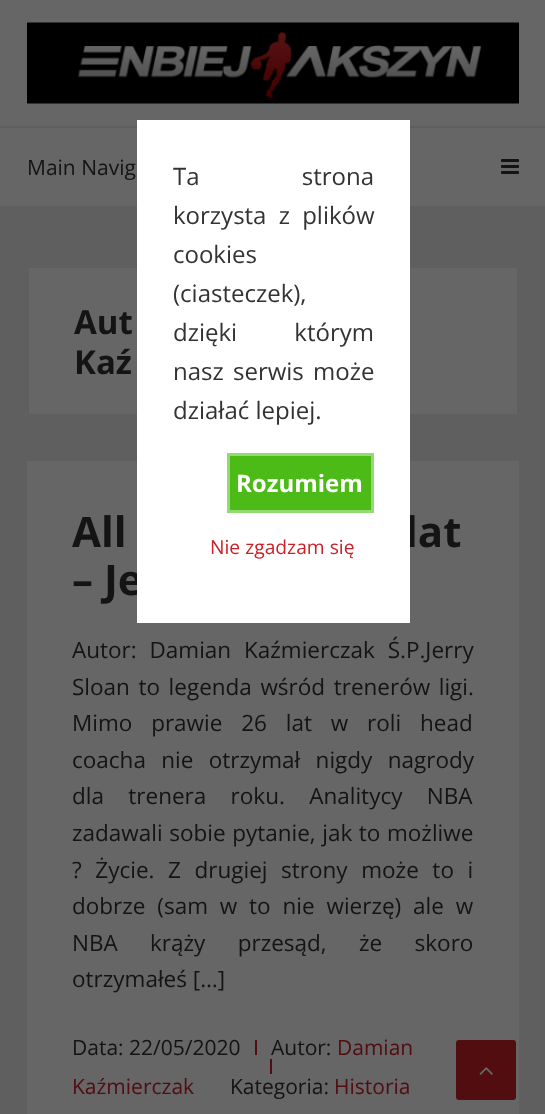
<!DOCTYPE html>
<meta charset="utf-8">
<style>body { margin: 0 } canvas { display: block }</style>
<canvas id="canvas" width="545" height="1114"></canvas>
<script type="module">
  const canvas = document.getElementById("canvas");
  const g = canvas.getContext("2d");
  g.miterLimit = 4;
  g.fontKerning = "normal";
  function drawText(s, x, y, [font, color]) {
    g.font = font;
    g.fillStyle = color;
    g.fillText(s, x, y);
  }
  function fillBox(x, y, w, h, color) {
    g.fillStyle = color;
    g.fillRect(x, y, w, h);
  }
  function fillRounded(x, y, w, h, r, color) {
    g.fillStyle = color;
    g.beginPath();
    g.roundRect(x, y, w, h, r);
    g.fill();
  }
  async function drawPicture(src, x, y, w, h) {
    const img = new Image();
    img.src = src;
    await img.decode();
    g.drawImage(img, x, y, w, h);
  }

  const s1 = ["21px Open Sans", "#141414"];
  const s2 = ["bold 33px Open Sans", "#141414"];
  const s3 = ["bold 42px Open Sans", "#141414"];
  const s4 = ["22.5px Open Sans", "#141414"];
  const s5 = ["21px Open Sans", "#510D10"];
  const s6 = ["24px Open Sans", "#333333"];
  const s7 = ["bold 24px Open Sans", "#FFFFFF"];
  const s8 = ["19.25px Open Sans", "#CB2027"];

  fillBox(0, 0, 545, 1114, "#5F5F5F");
  fillBox(0, 0, 545, 206, "#666666");
  await drawPicture("pic1.png", 27, 22, 492, 82);
  fillBox(0, 126, 545, 2, "#5E5E5E");
  drawText("Main Navig", 27, 175, s1);
  await drawPicture("pic2.png", 501, 159, 18, 15);
  fillBox(29, 268, 488, 146, "#666666");
  drawText("Aut", 74, 334, s2);
  drawText("Kaź", 74, 374, s2);
  fillBox(27, 461, 492, 653, "#666666");
  drawText("All", 72, 547, s3);
  drawText("lat", 405, 547, s3);
  drawText("– Je", 72, 595, s3);
  g.wordSpacing = "7px";
  drawText("Autor: Damian Kaźmierczak Ś.P.Jerry", 72, 658, s4);
  g.wordSpacing = "2.75px";
  drawText("Sloan to legenda wśród trenerów ligi.", 72, 695, s4);
  g.wordSpacing = "13px";
  drawText("Mimo prawie 26 lat w roli head", 72, 731, s4);
  g.wordSpacing = "9.5px";
  drawText("coacha nie otrzymał nigdy nagrody", 72, 768, s4);
  g.wordSpacing = "18.5px";
  drawText("dla trenera roku. Analitycy NBA", 72, 804, s4);
  g.wordSpacing = "0.75px";
  drawText("zadawali sobie pytanie, jak to możliwe", 72, 841, s4);
  g.wordSpacing = "7.75px";
  drawText("? Życie. Z drugiej strony może to i", 72, 878, s4);
  g.wordSpacing = "6px";
  drawText("dobrze (sam w to nie wierzę) ale w", 72, 914, s4);
  g.wordSpacing = "26.5px";
  drawText("NBA krąży przesąd, że skoro", 72, 951, s4);
  g.wordSpacing = "0px";
  drawText("otrzymałeś […]", 72, 987, s4);
  drawText("Data: 22/05/2020", 72, 1055, s1);
  fillBox(255, 1040, 2, 15, "#510D10");
  drawText("Autor:", 271, 1055, s1);
  drawText("Damian", 337, 1055, s5);
  fillBox(270, 1059, 2, 15, "#510D10");
  drawText("Kaźmierczak", 72, 1094, s5);
  drawText("Kategoria:", 230, 1094, s1);
  drawText("Historia", 334, 1094, s5);
  fillRounded(456, 1040, 60, 60, 3, "#510D10");
  await drawPicture("pic3.png", 479, 1067, 14, 8);
  fillBox(137, 120, 273, 503, "#FFFFFF");
  g.wordSpacing = "96px";
  drawText("Ta strona", 173, 185, s6);
  g.wordSpacing = "6px";
  drawText("korzysta z plików", 173, 224, s6);
  g.wordSpacing = "0px";
  drawText("cookies", 173, 263, s6);
  drawText("(ciasteczek),", 173, 302, s6);
  g.wordSpacing = "51px";
  drawText("dzięki którym", 173, 341, s6);
  g.wordSpacing = "3px";
  drawText("nasz serwis może", 173, 380, s6);
  g.wordSpacing = "0px";
  drawText("działać lepiej.", 173, 419, s6);
  g.fillStyle = "#4CBB17";
  g.beginPath();
  g.rect(228.5, 454.5, 144, 57);
  g.fill();
  g.strokeStyle = "#93DB70";
  g.lineWidth = 3;
  g.stroke();
  drawText("Rozumiem", 236, 492, s7);
  drawText("Nie zgadzam się", 210, 554, s8);
</script>
